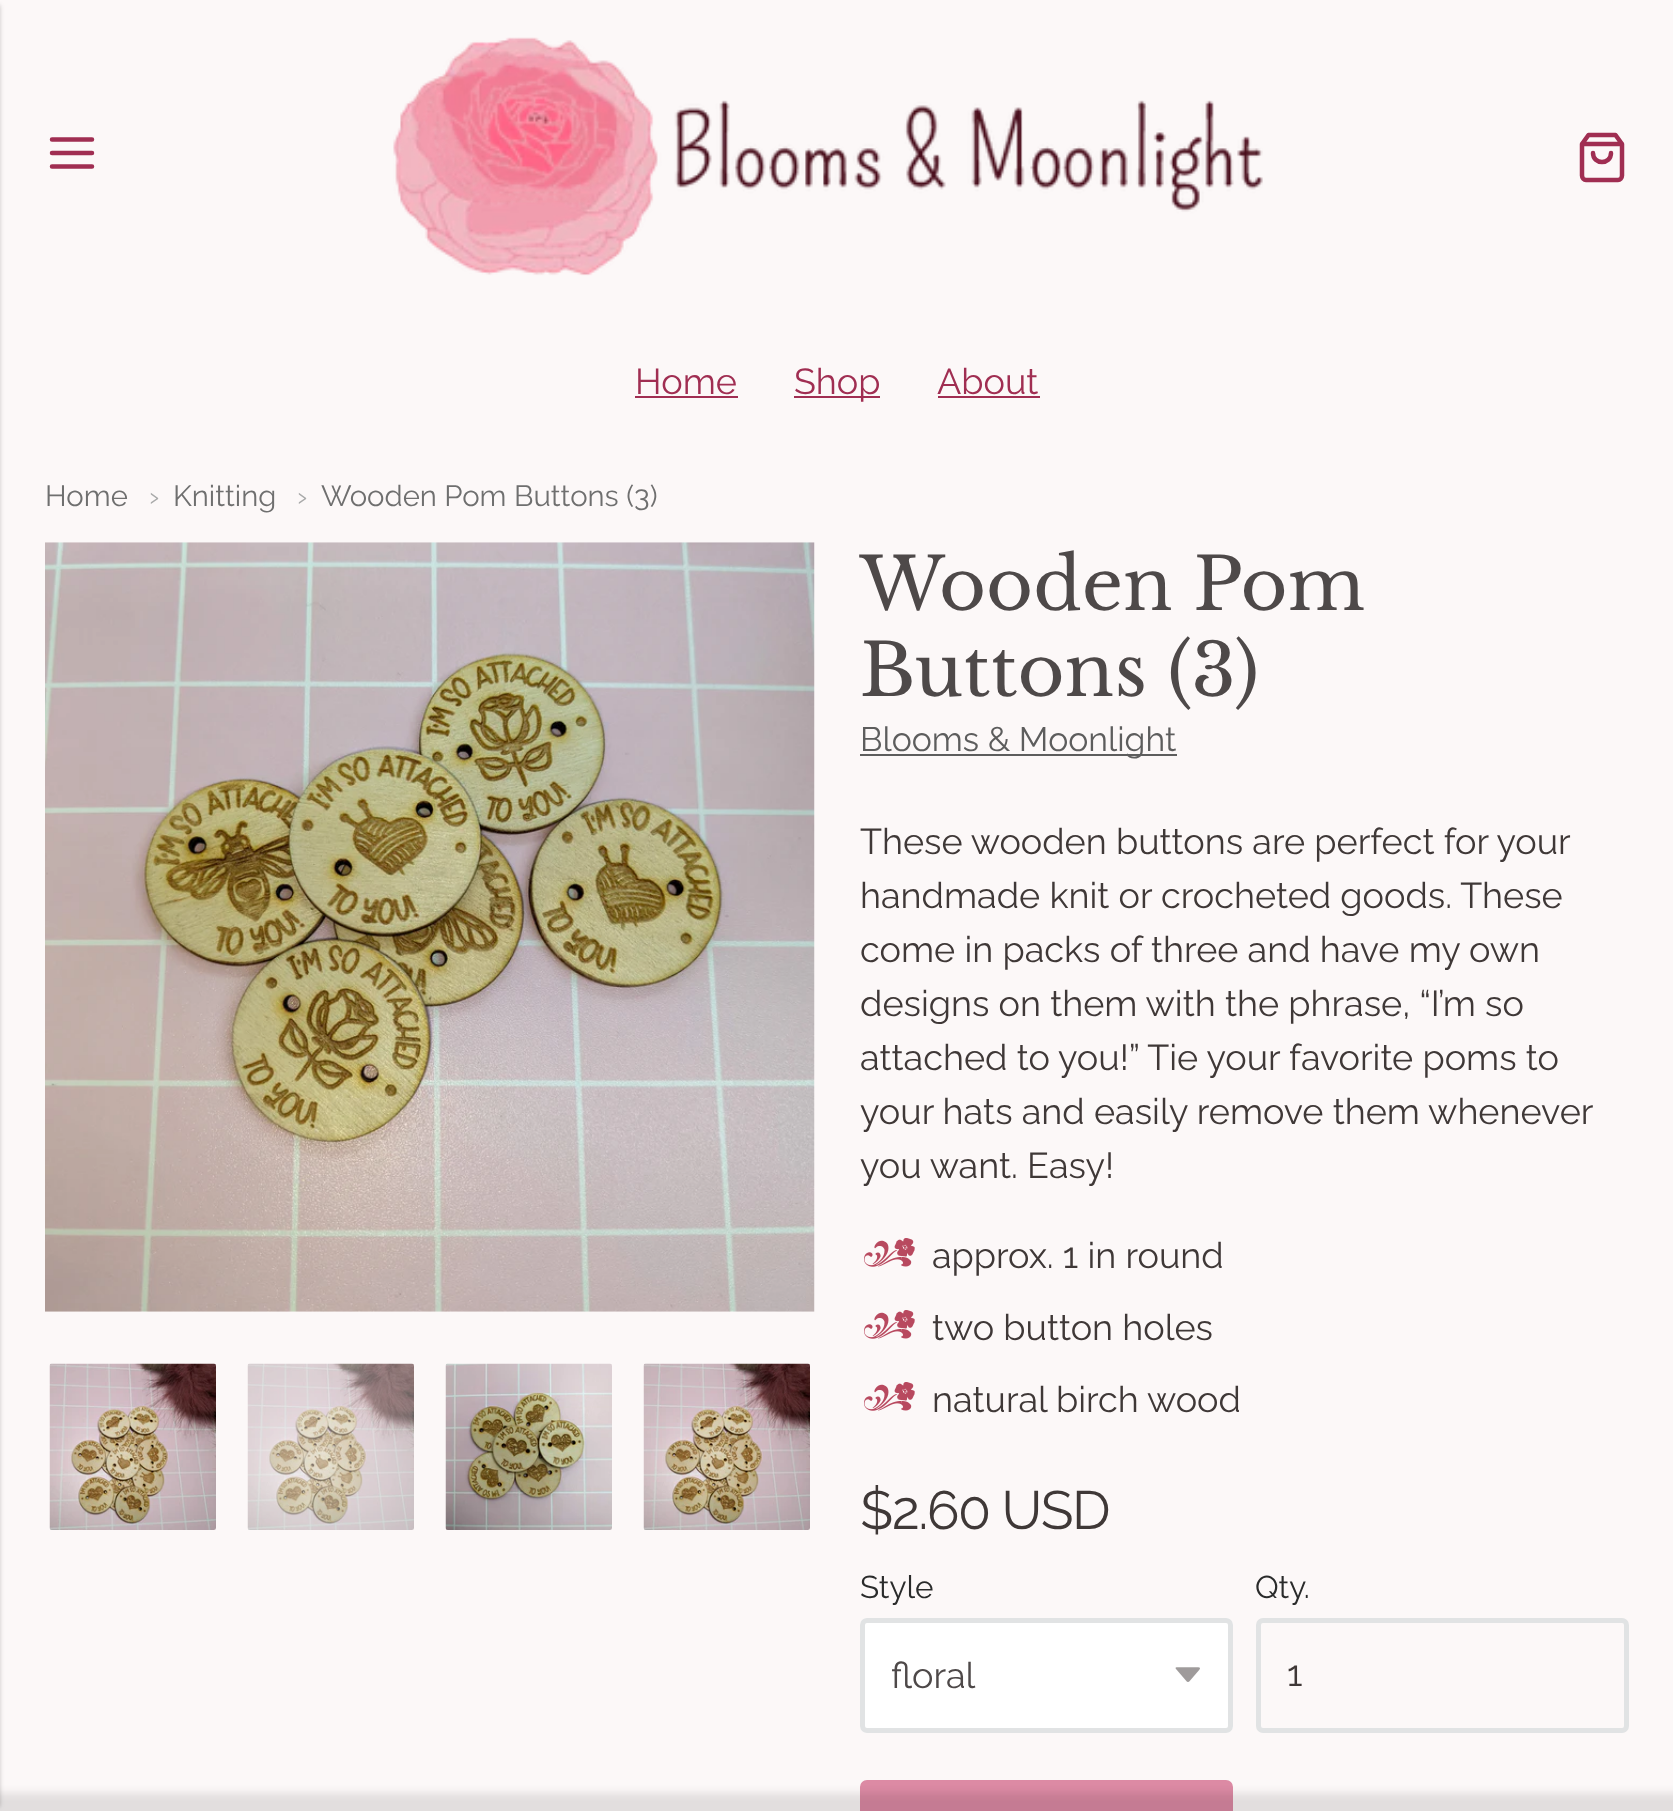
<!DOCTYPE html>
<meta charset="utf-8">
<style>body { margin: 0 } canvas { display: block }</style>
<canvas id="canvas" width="1673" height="1811"></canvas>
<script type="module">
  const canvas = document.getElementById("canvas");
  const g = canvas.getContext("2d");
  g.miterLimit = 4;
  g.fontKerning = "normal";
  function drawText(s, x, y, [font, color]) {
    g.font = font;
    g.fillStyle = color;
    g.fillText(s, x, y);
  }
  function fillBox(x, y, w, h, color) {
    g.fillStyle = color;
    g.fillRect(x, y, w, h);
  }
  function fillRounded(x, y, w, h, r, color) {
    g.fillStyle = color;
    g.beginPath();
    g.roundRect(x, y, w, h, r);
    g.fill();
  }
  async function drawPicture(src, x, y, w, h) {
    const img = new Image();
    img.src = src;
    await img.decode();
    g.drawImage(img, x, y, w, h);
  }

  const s1 = ["36px Raleway", "#A02E52"];
  const s2 = ["29.25px Raleway", "#6F6F6F"];
  const s3 = ["29.25px Raleway", "#A9AAAA"];
  const s4 = ["72px Libre Baskerville", "#4E4949"];
  const s5 = ["33.75px Raleway", "#5D5D5D"];
  const s6 = ["36px Raleway", "#3F3837"];
  const s7 = ["54px Raleway", "#3F3837"];
  const s8 = ["31.5px Raleway", "#2A2B2B"];
  const s9 = ["36px Raleway", "#4E4949"];

  fillBox(0, 0, 1673, 1811, "#FCF8F8");
  g.fillStyle = "rgba(0, 0, 0, 0.2)";
  g.filter = "blur(2px)";
  g.beginPath();
  g.rect(-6, 5, 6, 1802);
  g.fill();
  g.filter = "none";
  g.beginPath();
  g.moveTo(52, 153);
  g.lineTo(92, 153);
  g.moveTo(52, 139.5);
  g.lineTo(92, 139.5);
  g.moveTo(52, 166.5);
  g.lineTo(92, 166.5);
  g.strokeStyle = "#A02E52";
  g.lineWidth = 4.5;
  g.lineCap = "round";
  g.lineJoin = "round";
  g.stroke();
  await drawPicture("pic1.png", 393, 37, 870, 239);
  g.beginPath();
  g.moveTo(1588.5, 135);
  g.lineTo(1582, 144);
  g.lineTo(1582, 175.5);
  g.bezierCurveTo(1582, 178, 1584, 180, 1586, 180);
  g.lineTo(1618, 180);
  g.bezierCurveTo(1620, 180, 1622, 178, 1622, 175.5);
  g.lineTo(1622, 144);
  g.lineTo(1615.5, 135);
  g.closePath();
  g.moveTo(1582, 144);
  g.lineTo(1622, 144);
  g.moveTo(1611, 153);
  g.bezierCurveTo(1611, 165, 1593, 165, 1593, 153);
  g.stroke();
  drawText("Home", 635, 394, s1);
  fillBox(635, 396, 103, 2, "#A02E52");
  fillBox(794, 396, 86, 2, "#A02E52");
  drawText("Shop", 794, 394, s1);
  drawText("About", 937, 394, s1);
  fillBox(938, 396, 102, 2, "#A02E52");
  drawText("Home", 45, 506, s2);
  drawText("›", 149, 506, s3);
  drawText("Knitting", 173, 506, s2);
  drawText("›", 297, 506, s3);
  drawText("Wooden Pom Buttons (3)", 321, 506, s2);
  await drawPicture("pic2.png", 45, 542, 770, 770);
  await drawPicture("pic3.png", 49, 1363, 167, 167);
  g.fillStyle = "#F5F5F6";
  g.beginPath();
  g.roundRect(245.5, 1361.5, 171, 171, 4.5);
  g.fill();
  g.strokeStyle = "#FCF8F8";
  g.lineWidth = 5;
  g.lineJoin = "miter";
  g.stroke();
  await drawPicture("pic4.png", 247, 1363, 167, 167);
  await drawPicture("pic5.png", 445, 1363, 167, 167);
  await drawPicture("pic6.png", 643, 1363, 167, 167);
  drawText("Wooden Pom", 860, 610, s4);
  drawText("Buttons (3)", 860, 696, s4);
  fillBox(860, 754, 317, 2, "#5D5D5D");
  drawText("Blooms & Moonlight", 860, 751, s5);
  drawText("These wooden buttons are perfect for your", 860, 854, s6);
  drawText("handmade knit or crocheted goods. These", 860, 908, s6);
  drawText("come in packs of three and have my own", 860, 962, s6);
  drawText("designs on them with the phrase, “I’m so", 860, 1016, s6);
  drawText("attached to you!” Tie your favorite poms to", 860, 1070, s6);
  drawText("your hats and easily remove them whenever", 860, 1124, s6);
  drawText("you want. Easy!", 860, 1178, s6);
  await drawPicture("pic7.png", 864, 1238, 51, 29);
  drawText("approx. 1 in round", 932, 1268, s6);
  await drawPicture("pic7.png", 864, 1310, 51, 29);
  drawText("two button holes", 932, 1340, s6);
  await drawPicture("pic7.png", 864, 1382, 51, 29);
  drawText("natural birch wood", 932, 1412, s6);
  g.letterSpacing = "-1.6px";
  drawText("$2.60 USD", 860, 1529, s7);
  g.letterSpacing = "0px";
  drawText("Style", 860, 1598, s8);
  fillRounded(860, 1618, 373, 115, 7, "#FFFFFF");
  await drawPicture("pic8.png", 1175, 1667, 25, 15);
  g.beginPath();
  g.roundRect(862.5, 1620.5, 368, 110, 4.5);
  g.strokeStyle = "#E1E3E4";
  g.stroke();
  drawText("floral", 891, 1688, s9);
  drawText("Qty.", 1255, 1598, s8);
  g.beginPath();
  g.roundRect(1258.5, 1620.5, 368, 110, 4.5);
  g.stroke();
  drawText("1", 1287, 1686, s6);
  g.fillStyle = "#DC8AA4";
  g.beginPath();
  g.roundRect(862.5, 1782.5, 368, 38, 4.5);
  g.fill();
  g.strokeStyle = "#DC8AA4";
  g.stroke();
  g.fillStyle = "rgba(0, 0, 0, 0.1)";
  g.filter = "blur(4.5px)";
  g.beginPath();
  g.rect(-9, 1793, 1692, 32);
  g.fill();
  g.filter = "none";
</script>
